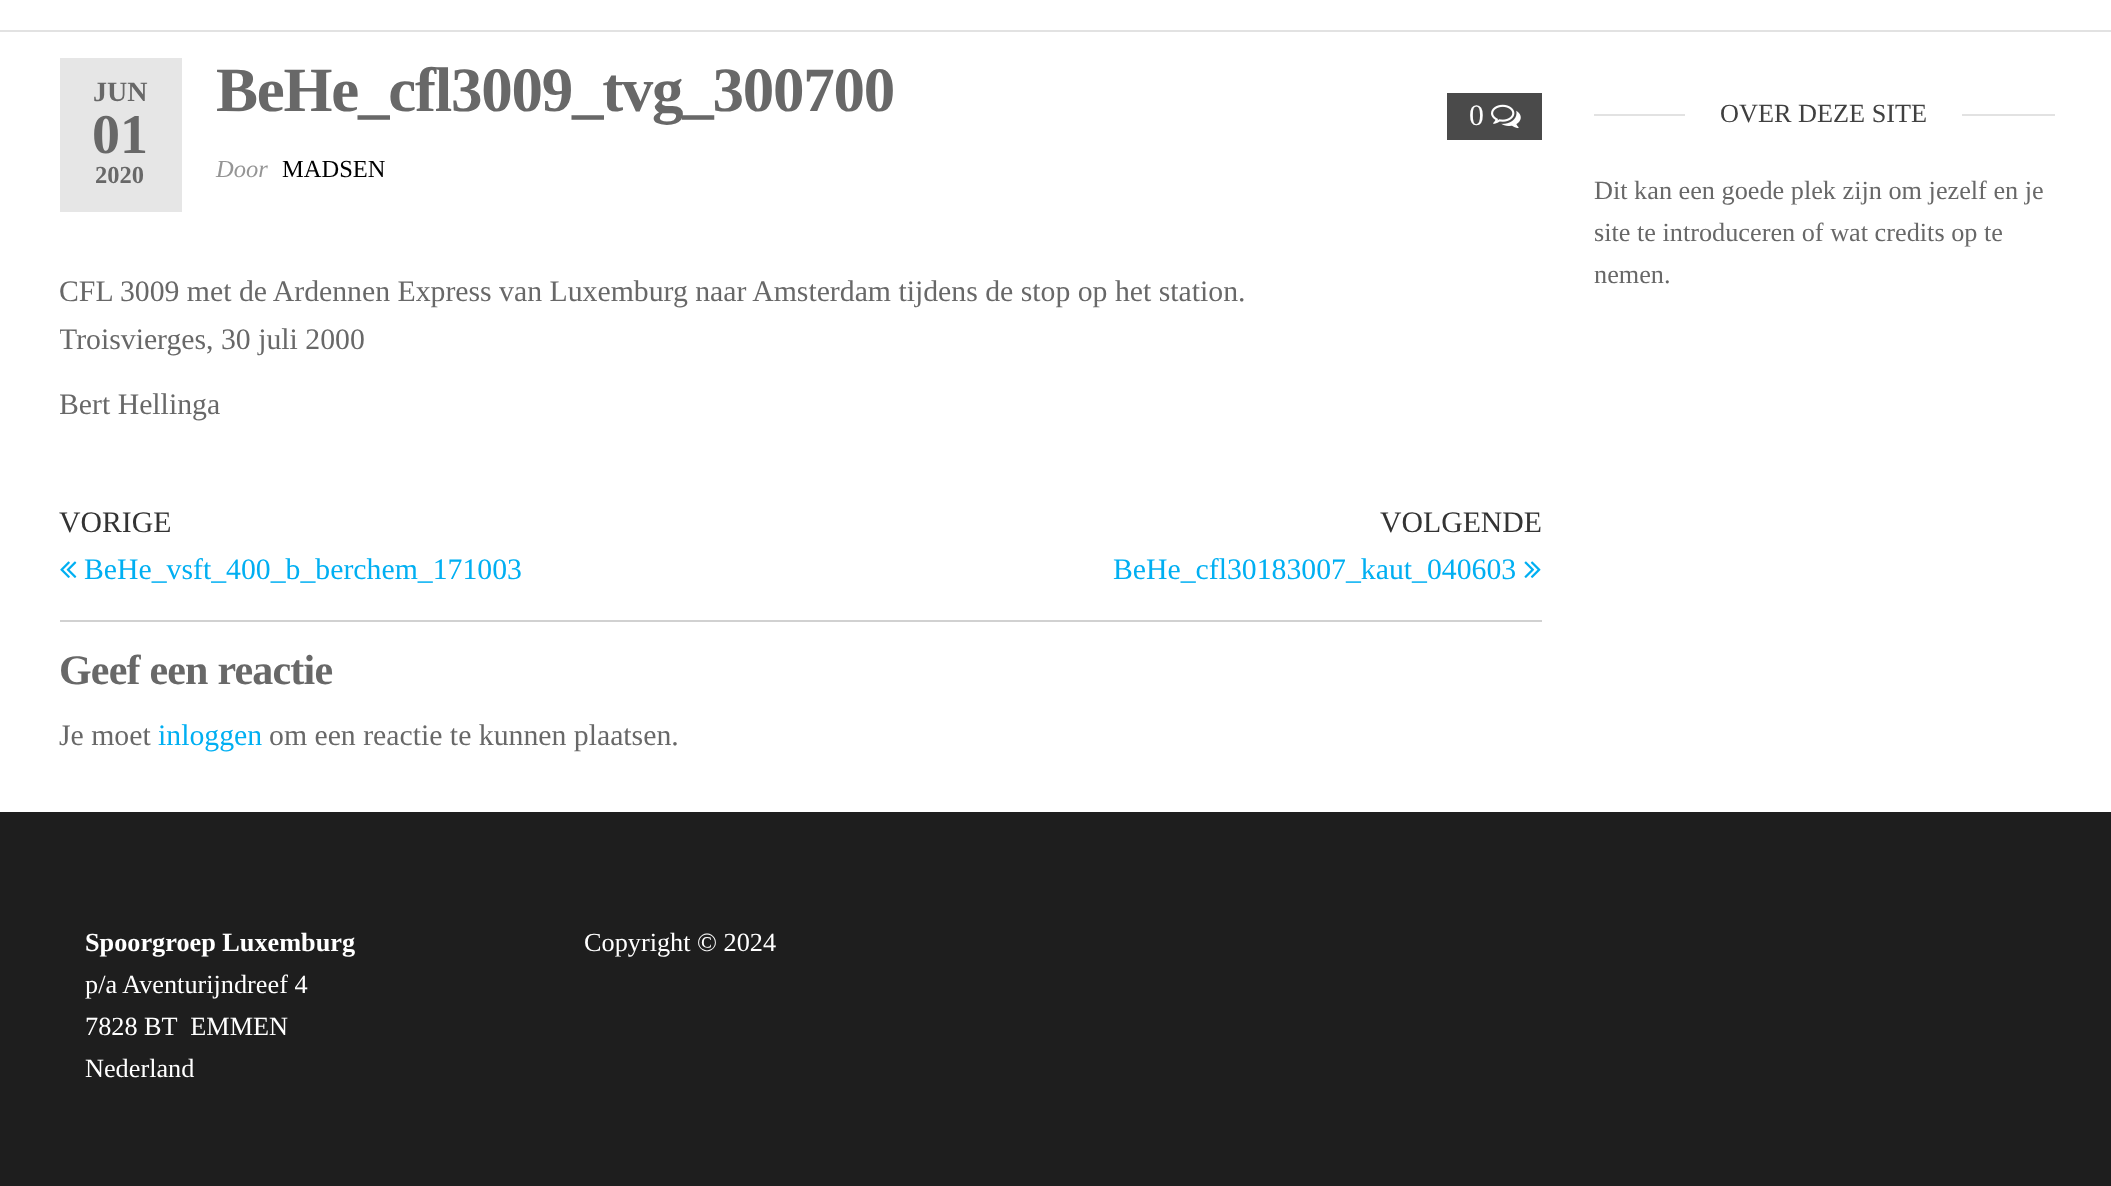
<!DOCTYPE html>
<meta charset="utf-8">
<style>body { margin: 0 } canvas { display: block }</style>
<canvas id="canvas" width="2111" height="1186"></canvas>
<script type="module">
  const canvas = document.getElementById("canvas");
  const g = canvas.getContext("2d");
  g.miterLimit = 4;
  g.fontKerning = "normal";
  function drawText(s, x, y, [font, color]) {
    g.font = font;
    g.fillStyle = color;
    g.fillText(s, x, y);
  }
  function fillBox(x, y, w, h, color) {
    g.fillStyle = color;
    g.fillRect(x, y, w, h);
  }
  async function drawPicture(src, x, y, w, h) {
    const img = new Image();
    img.src = src;
    await img.decode();
    g.drawImage(img, x, y, w, h);
  }

  const s1 = ["bold 63px Liberation Serif", "#686868"];
  const s2 = ["bold 28px Liberation Serif", "#686868"];
  const s3 = ["bold 56px Liberation Serif", "#686868"];
  const s4 = ["bold 24.5px Liberation Serif", "#686868"];
  const s5 = ["29.75px Liberation Serif", "#FFFFFF"];
  const s6 = ["italic 24.5px Liberation Serif", "#959595"];
  const s7 = ["24.5px Liberation Serif", "#000000"];
  const s8 = ["29.75px Liberation Serif", "#686868"];
  const s9 = ["29.75px Liberation Serif", "#333333"];
  const s10 = ["29.75px Liberation Serif", "#00AFF2"];
  const s11 = ["bold 42px Liberation Serif", "#686868"];
  const s12 = ["26.25px Liberation Serif", "#404040"];
  const s13 = ["26.25px Liberation Serif", "#686868"];
  const s14 = ["bold 26.25px Liberation Serif", "#FFFFFF"];
  const s15 = ["26.25px Liberation Serif", "#FFFFFF"];

  fillBox(0, 0, 2111, 1186, "#FFFFFF");
  fillBox(0, 30, 2111, 2, "#E2E2E2");
  g.letterSpacing = "-1.25px";
  drawText("BeHe_cfl3009_tvg_300700", 216, 111, s1);
  fillBox(60, 58, 122, 154, "#E6E6E6");
  g.letterSpacing = "0px";
  drawText("JUN", 93, 101, s2);
  drawText("01", 92, 153, s3);
  drawText("2020", 95, 183, s4);
  fillBox(1447, 93, 95, 47, "#4A4A4A");
  drawText("0", 1469, 125, s5);
  await drawPicture("pic1.png", 1491, 104, 30, 25);
  drawText("Door", 216, 177, s6);
  drawText("MADSEN", 282, 177, s7);
  g.save();
  g.beginPath();
  g.rect(60, 268, 1482, 178);
  g.clip();
  drawText("CFL 3009 met de Ardennen Express van Luxemburg naar Amsterdam tijdens de stop op het station.", 59, 301, s8);
  drawText("Troisvierges, 30 juli 2000", 59, 349, s8);
  drawText("Bert Hellinga", 59, 414, s8);
  g.restore();
  fillBox(60, 620, 1482, 2, "#D1D1D1");
  drawText("VORIGE", 59, 532, s9);
  await drawPicture("pic2.png", 60, 561, 17, 17);
  drawText("BeHe_vsft_400_b_berchem_171003", 84, 579, s10);
  drawText("VOLGENDE", 1380, 532, s9);
  drawText("BeHe_cfl30183007_kaut_040603", 1113, 579, s10);
  await drawPicture("pic3.png", 1524, 561, 17, 17);
  g.letterSpacing = "-0.8px";
  drawText("Geef een reactie", 59, 684, s11);
  g.letterSpacing = "0px";
  drawText("Je moet", 59, 745, s8);
  drawText("inloggen", 158, 745, s10);
  drawText("om een reactie te kunnen plaatsen.", 269, 745, s8);
  fillBox(1594, 114, 461, 2, "#E2E2E2");
  fillBox(1685, 114, 277, 2, "#FFFFFF");
  drawText("OVER DEZE SITE", 1720, 122, s12);
  drawText("Dit kan een goede plek zijn om jezelf en je", 1594, 199, s13);
  drawText("site te introduceren of wat credits op te", 1594, 241, s13);
  drawText("nemen.", 1594, 283, s13);
  fillBox(0, 812, 2111, 374, "#1E1E1E");
  drawText("Spoorgroep Luxemburg", 85, 951, s14);
  drawText("p/a Aventurijndreef 4", 85, 993, s15);
  drawText("7828 BT  EMMEN", 85, 1035, s15);
  drawText("Nederland", 85, 1077, s15);
  drawText("Copyright © 2024", 584, 951, s15);
</script>
